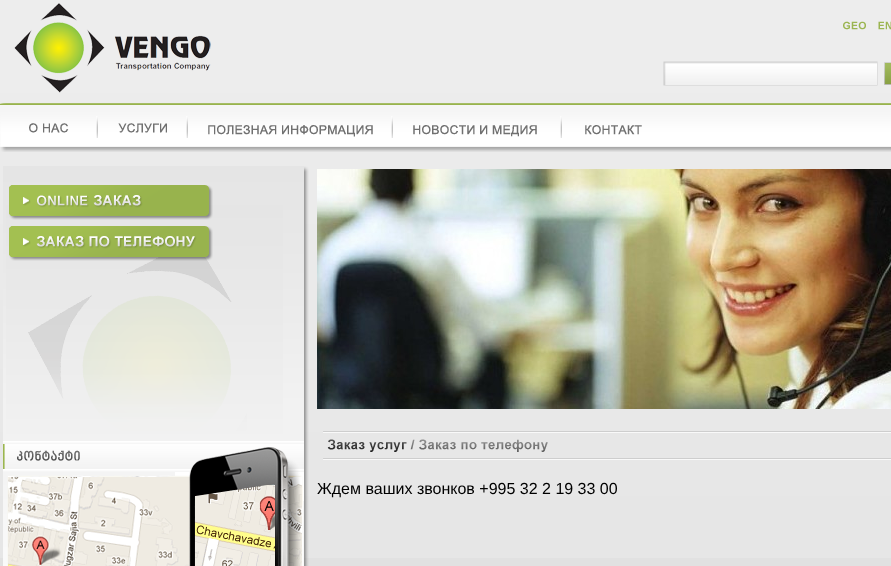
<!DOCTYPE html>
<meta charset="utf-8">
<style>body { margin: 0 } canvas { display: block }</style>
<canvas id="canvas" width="891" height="566"></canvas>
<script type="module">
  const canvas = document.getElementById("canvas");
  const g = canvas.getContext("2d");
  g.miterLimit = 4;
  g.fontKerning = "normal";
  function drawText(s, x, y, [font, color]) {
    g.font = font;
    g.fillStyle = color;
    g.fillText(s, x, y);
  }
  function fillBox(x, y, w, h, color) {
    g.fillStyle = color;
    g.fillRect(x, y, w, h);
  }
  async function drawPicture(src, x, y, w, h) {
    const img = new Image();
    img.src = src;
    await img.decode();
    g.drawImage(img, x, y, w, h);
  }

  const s1 = ["16px Liberation Sans", "#000000"];

  fillBox(0, 0, 891, 566, "#E1E1E1");
  await drawPicture("pic1.png", 0, 0, 891, 558);
  await drawPicture("pic2.png", 14, 3, 197, 90);
  await drawPicture("pic3.png", 843, 21, 23, 9);
  await drawPicture("pic4.png", 878, 21, 13, 9);
  await drawPicture("pic5.png", 663, 61, 215, 25);
  await drawPicture("pic6.png", 884, 62, 7, 23);
  await drawPicture("pic7.png", 0, 103, 891, 49);
  await drawPicture("pic8.png", 29, 123, 40, 10);
  await drawPicture("pic9.png", 96, 116, 2, 22);
  await drawPicture("pic10.png", 118, 123, 49, 10);
  await drawPicture("pic9.png", 186, 116, 2, 22);
  await drawPicture("pic11.png", 208, 125, 165, 12);
  await drawPicture("pic9.png", 391, 116, 2, 22);
  await drawPicture("pic12.png", 413, 125, 124, 12);
  await drawPicture("pic9.png", 560, 116, 2, 22);
  await drawPicture("pic13.png", 585, 125, 57, 10);
  await drawPicture("pic14.png", 3, 166, 306, 400);
  await drawPicture("pic15.png", 9, 185, 204, 35);
  await drawPicture("pic16.png", 9, 226, 204, 35);
  await drawPicture("pic17.png", 317, 169, 574, 240);
  await drawPicture("pic18.png", 323, 431, 568, 29);
  drawText("Ждем ваших звонков +995 32 2 19 33 00", 317, 494, s1);
</script>
